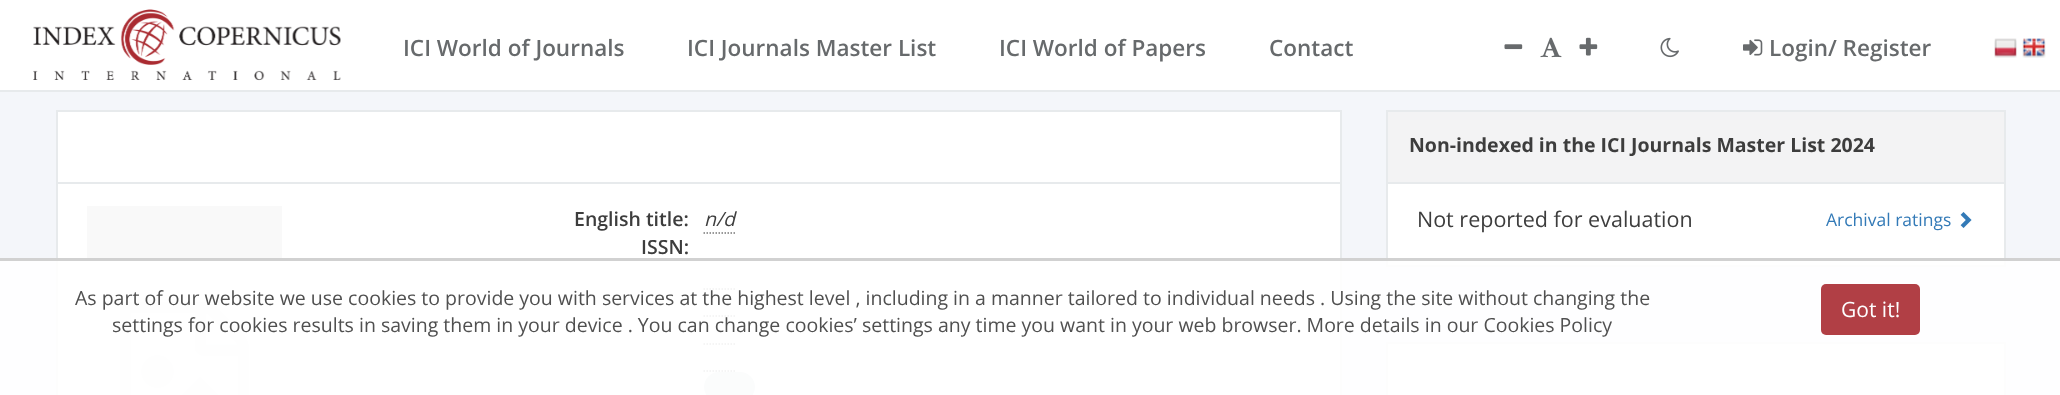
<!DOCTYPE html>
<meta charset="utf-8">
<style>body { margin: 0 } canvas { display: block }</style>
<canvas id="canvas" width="2060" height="395"></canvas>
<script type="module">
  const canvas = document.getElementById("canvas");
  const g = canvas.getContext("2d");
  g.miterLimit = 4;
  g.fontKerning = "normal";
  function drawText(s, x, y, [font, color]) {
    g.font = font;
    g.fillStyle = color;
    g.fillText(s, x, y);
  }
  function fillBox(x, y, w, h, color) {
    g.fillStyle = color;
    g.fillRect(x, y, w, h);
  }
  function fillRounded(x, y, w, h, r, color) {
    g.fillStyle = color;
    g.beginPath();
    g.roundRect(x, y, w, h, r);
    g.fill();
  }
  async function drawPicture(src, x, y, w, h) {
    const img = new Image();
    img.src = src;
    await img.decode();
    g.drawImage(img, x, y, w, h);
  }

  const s1 = ["600 22.5px Open Sans", "#676A6C"];
  const s2 = ["600 19.5px Open Sans", "#3D3D3D"];
  const s3 = ["italic 19.5px Open Sans", "#3D3D3D"];
  const s4 = ["bold 19.5px Open Sans", "#3D3D3D"];
  const s5 = ["21.5px Open Sans", "#3D3D3D"];
  const s6 = ["17.5px Open Sans", "#337AB7"];
  const s7 = ["19.5px Open Sans", "#505050"];
  const s8 = ["21px Open Sans", "#FEFEFF"];

  fillBox(0, 0, 2060, 395, "#F4F6FA");
  fillBox(0, 0, 2060, 90, "#FFFFFF");
  fillBox(0, 90, 2060, 2, "#E7EAEC");
  await drawPicture("pic1.png", 33, 9, 308, 72);
  drawText("ICI World of Journals", 403, 56, s1);
  drawText("ICI Journals Master List", 687, 56, s1);
  drawText("ICI World of Papers", 999, 56, s1);
  drawText("Contact", 1269, 56, s1);
  await drawPicture("pic2.png", 1504, 44, 19, 6);
  await drawPicture("pic3.png", 1540, 37, 22, 21);
  await drawPicture("pic4.png", 1579, 37, 19, 19);
  await drawPicture("pic5.png", 1660, 37, 19, 21);
  await drawPicture("pic6.png", 1743, 39, 20, 17);
  drawText("Login/ Register", 1769, 56, s1);
  await drawPicture("pic7.png", 1994, 38, 23, 20);
  await drawPicture("pic8.png", 2022, 38, 24, 20);
  fillBox(58, 112, 1282, 70, "#FFFFFF");
  fillBox(56, 110, 1285, 2, "#E7EAEC");
  fillBox(1340, 110, 2, 72, "#E7EAEC");
  fillBox(56, 110, 2, 72, "#E7EAEC");
  fillBox(58, 184, 1282, 211, "#FFFFFF");
  fillBox(56, 182, 1285, 2, "#E7EAEC");
  fillBox(1340, 182, 2, 213, "#E7EAEC");
  fillBox(56, 182, 2, 213, "#E7EAEC");
  fillBox(87, 206, 195, 189, "#F9F9F9");
  await drawPicture("pic9.png", 120, 302, 129, 93);
  drawText("English title:", 574, 226, s2);
  drawText("n/d", 704, 226, s3);
  g.beginPath();
  g.moveTo(703.5, 233);
  g.lineTo(735, 233);
  g.strokeStyle = "#777777";
  g.lineWidth = 1.5;
  g.setLineDash([1.5, 1.5]);
  g.stroke();
  drawText("ISSN:", 641, 254, s2);
  g.beginPath();
  g.moveTo(703.5, 289);
  g.lineTo(735, 289);
  g.moveTo(703.5, 316);
  g.lineTo(735, 316);
  g.moveTo(703.5, 344);
  g.lineTo(735, 344);
  g.stroke();
  g.beginPath();
  g.moveTo(703.5, 371);
  g.lineTo(735, 371);
  g.stroke();
  fillRounded(704, 372, 51, 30, 15, "#D1DADE");
  fillBox(1388, 112, 616, 70, "#F3F3F4");
  fillBox(1386, 110, 620, 2, "#E7EAEC");
  fillBox(2004, 110, 2, 72, "#E7EAEC");
  fillBox(1386, 110, 2, 72, "#E7EAEC");
  drawText("Non-indexed in the ICI Journals Master List 2024", 1409, 152, s4);
  g.fillStyle = "#FFFFFF";
  g.beginPath();
  g.rect(1387, 183, 618, 83);
  g.fill();
  g.strokeStyle = "#E7EAEC";
  g.lineWidth = 2;
  g.setLineDash([]);
  g.stroke();
  drawText("Not reported for evaluation", 1417, 227, s5);
  drawText("Archival ratings", 1826, 226, s6);
  await drawPicture("pic10.png", 1960, 212, 12, 16);
  fillBox(1388, 344, 616, 51, "#FFFFFF");
  fillBox(1386, 342, 620, 2, "#E7EAEC");
  fillBox(2004, 342, 2, 53, "#E7EAEC");
  fillBox(1386, 342, 2, 53, "#E7EAEC");
  fillBox(0, 261, 2060, 134, "rgba(255, 255, 255, 0.9)");
  fillBox(0, 258, 2060, 3, "#D1D1D1");
  drawText("As part of our website we use cookies to provide you with services at the highest level , including in a manner tailored to individual needs . Using the site without changing the", 75, 305, s7);
  drawText("settings for cookies results in saving them in your device . You can change cookies’ settings any time you want in your web browser. More details in our Cookies Policy", 112, 332, s7);
  fillRounded(1821, 284, 99, 51, 5, "#B13F45");
  drawText("Got it!", 1841, 317, s8);
</script>
